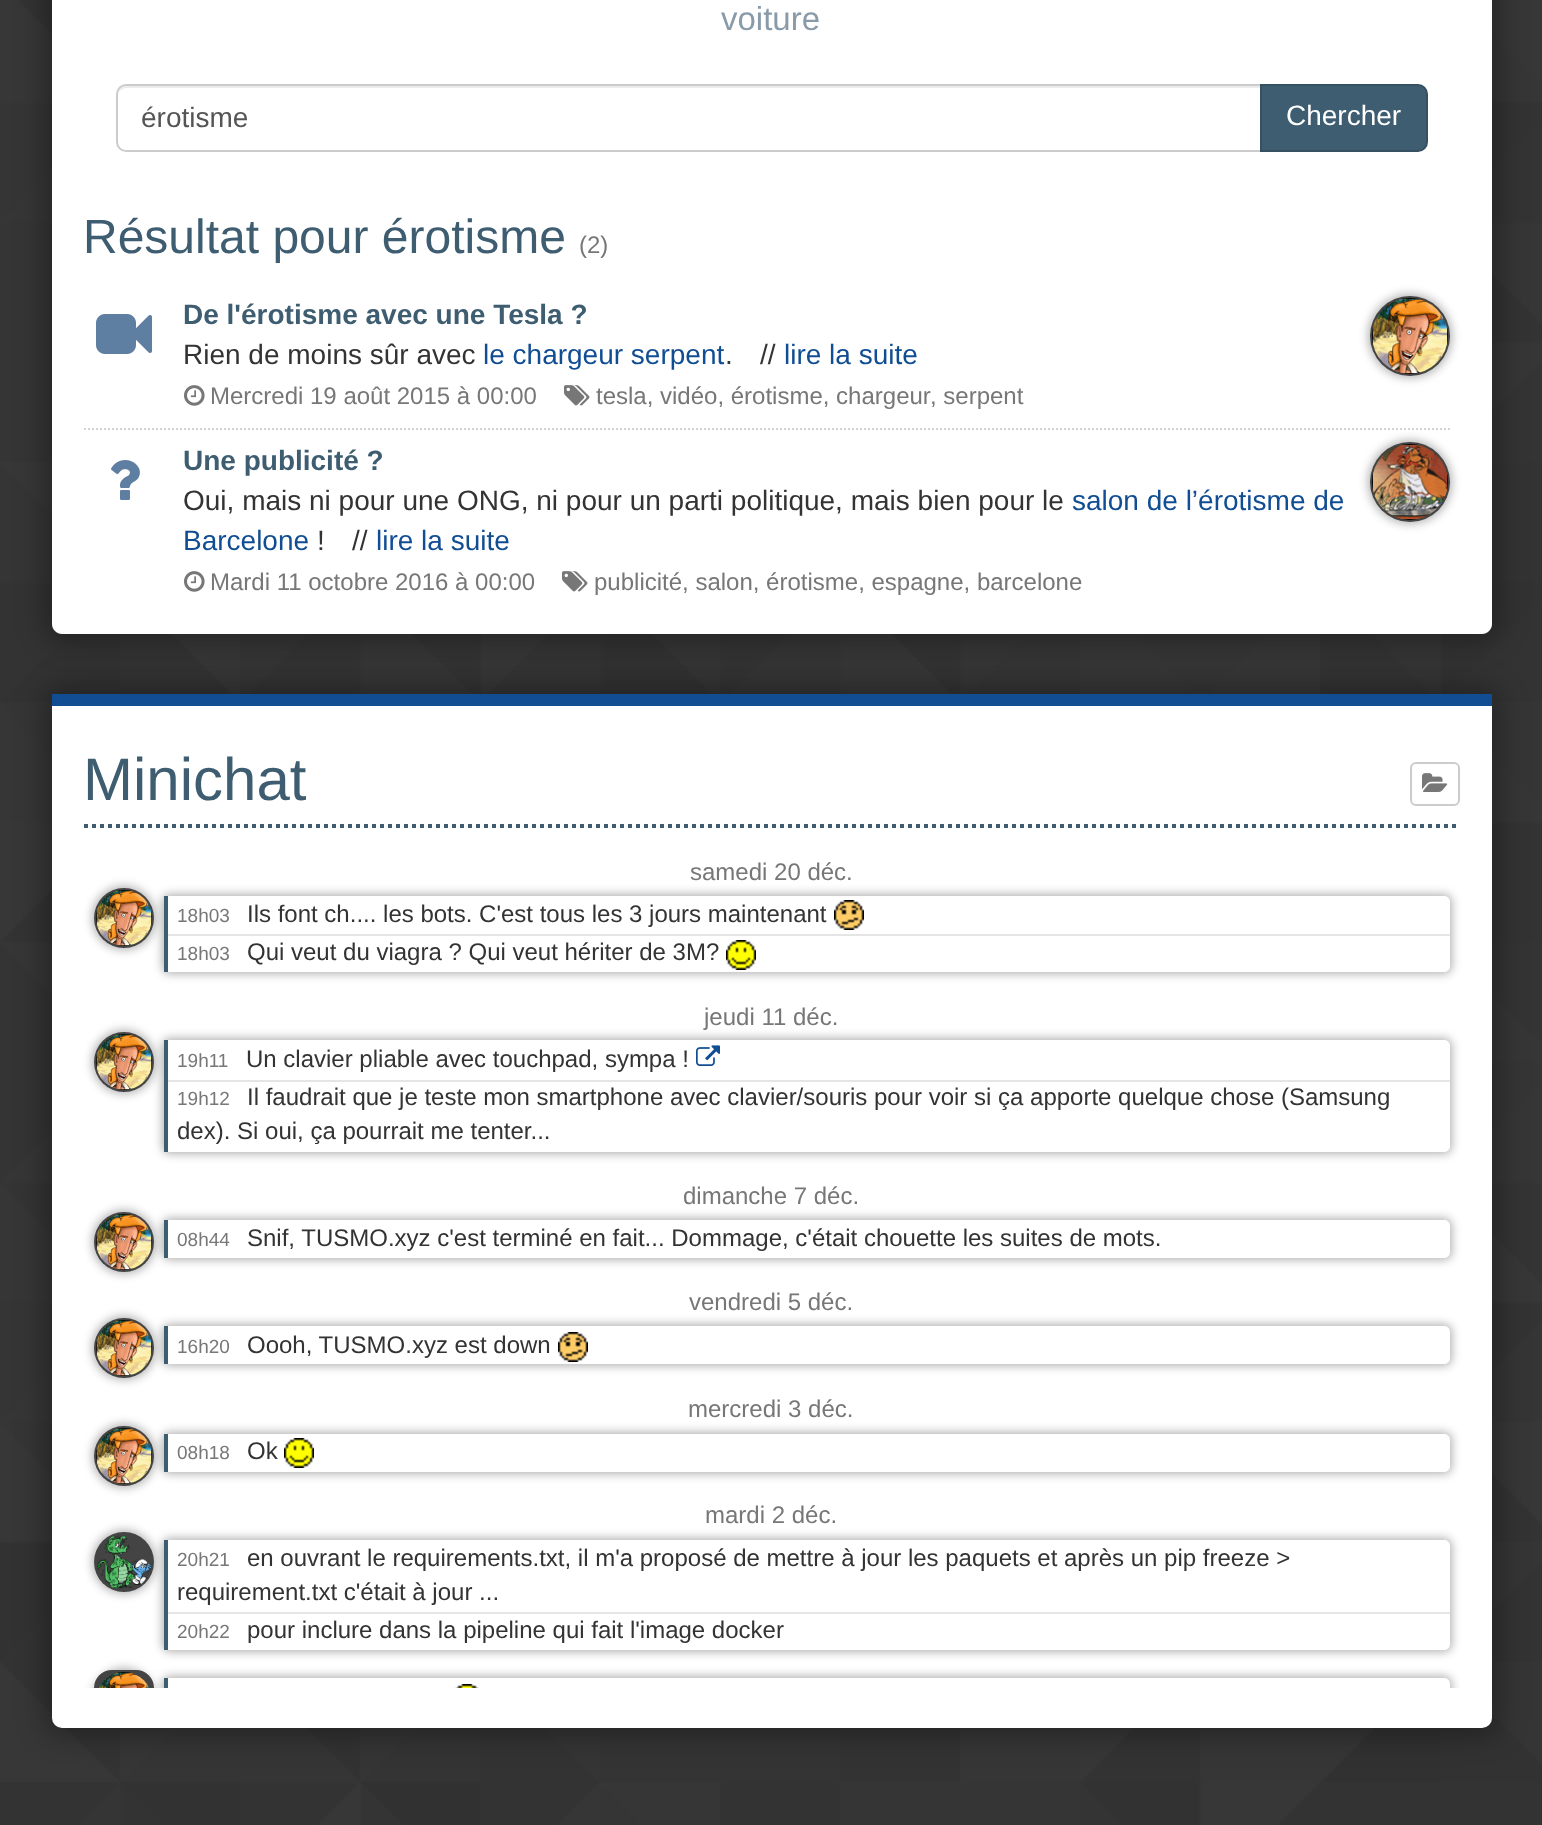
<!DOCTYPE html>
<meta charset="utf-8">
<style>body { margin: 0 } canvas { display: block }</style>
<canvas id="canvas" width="1542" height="1825"></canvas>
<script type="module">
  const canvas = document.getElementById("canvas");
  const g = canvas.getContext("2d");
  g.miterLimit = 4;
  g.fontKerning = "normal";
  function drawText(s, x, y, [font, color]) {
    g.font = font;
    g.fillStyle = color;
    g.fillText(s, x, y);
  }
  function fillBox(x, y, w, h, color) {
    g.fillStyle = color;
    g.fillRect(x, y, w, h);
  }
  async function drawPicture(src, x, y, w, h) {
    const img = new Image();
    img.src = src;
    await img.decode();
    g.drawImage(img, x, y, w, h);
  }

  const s1 = ["33px Liberation Sans", "#899AA9"];
  const s2 = ["28px Liberation Sans", "#555555"];
  const s3 = ["28px Liberation Sans", "#FFFFFF"];
  const s4 = ["48px Liberation Sans", "#3E5D71"];
  const s5 = ["24px Liberation Sans", "#777777"];
  const s6 = ["bold 28px Liberation Sans", "#3E5D71"];
  const s7 = ["28px Liberation Sans", "#333333"];
  const s8 = ["28px Liberation Sans", "#104D92"];
  const s9 = ["60px Liberation Sans", "#3E5D71"];
  const s10 = ["19px Liberation Sans", "#777777"];
  const s11 = ["24px Liberation Sans", "#333333"];

  fillBox(0, 0, 1542, 1825, "#FFFFFF");
  await drawPicture("pic1.png", 0, 0, 1542, 1825);
  g.fillStyle = "rgba(0, 0, 0, 0.3)";
  g.filter = "blur(14px)";
  g.beginPath();
  g.roundRect(44, -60, 1456, 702, 18);
  g.fill();
  g.filter = "none";
  g.fillStyle = "#FFFFFF";
  g.beginPath();
  g.moveTo(52, -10);
  g.lineTo(1492, -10);
  g.lineTo(1492, 624);
  g.bezierCurveTo(1492, 629.5, 1487.5, 634, 1482, 634);
  g.lineTo(62, 634);
  g.bezierCurveTo(56.5, 634, 52, 629.5, 52, 624);
  g.closePath();
  g.fill();
  drawText("voiture", 721, 30, s1);
  g.fillStyle = "#ECECEC";
  g.beginPath();
  g.moveTo(126, 88);
  g.lineTo(1260, 88);
  g.lineTo(1260, 86);
  g.lineTo(126, 86);
  g.bezierCurveTo(120, 86, 118, 91, 118, 96);
  g.bezierCurveTo(118, 92, 122, 88, 126, 88);
  g.closePath();
  g.fill();
  g.beginPath();
  g.roundRect(117, 85, 1144, 66, [9, 0, 0, 9]);
  g.strokeStyle = "#CCCCCC";
  g.lineWidth = 2;
  g.stroke();
  drawText("érotisme", 141, 127, s2);
  g.fillStyle = "#3E5D71";
  g.beginPath();
  g.roundRect(1261, 85, 166, 66, [0, 9, 9, 0]);
  g.fill();
  g.strokeStyle = "#355060";
  g.stroke();
  drawText("Chercher", 1286, 125, s3);
  drawText("Résultat pour érotisme", 83, 253, s4);
  drawText("(2)", 579, 253, s5);
  await drawPicture("pic2.png", 96, 314, 56, 40);
  drawText("De l'érotisme avec une Tesla ?", 183, 324, s6);
  drawText("Rien de moins sûr avec", 183, 364, s7);
  drawText("le chargeur serpent", 483, 364, s8);
  drawText(".", 725, 364, s7);
  drawText("//", 760, 364, s7);
  drawText("lire la suite", 784, 364, s8);
  await drawPicture("pic3.png", 184, 385, 21, 21);
  drawText("Mercredi 19 août 2015 à 00:00", 210, 404, s5);
  await drawPicture("pic4.png", 564, 385, 26, 21);
  drawText("tesla, vidéo, érotisme, chargeur", 596, 404, s5);
  drawText(", serpent", 930, 404, s5);
  g.fillStyle = "rgba(0, 0, 0, 0.3)";
  g.filter = "blur(5px)";
  g.beginPath();
  g.roundRect(1368, 294, 84, 84, 42);
  g.fill();
  g.filter = "none";
  g.fillStyle = "#444444";
  g.beginPath();
  g.arc(1410, 336, 40, 0, Math.PI * 2);
  g.fill();
  await drawPicture("pic5.png", 1372, 298, 76, 76);
  g.beginPath();
  g.moveTo(84, 429);
  g.lineTo(1450, 429);
  g.strokeStyle = "#D3D3D3";
  g.setLineDash([2, 2]);
  g.stroke();
  await drawPicture("pic6.png", 111, 460, 29, 40);
  drawText("Une publicité ?", 183, 470, s6);
  drawText("Oui, mais ni pour une ONG, ni pour un parti politique, mais bien pour le", 183, 510, s7);
  drawText("salon de l’érotisme de", 1072, 510, s8);
  drawText("Barcelone", 183, 550, s8);
  drawText("!", 317, 550, s7);
  drawText("//", 352, 550, s7);
  drawText("lire la suite", 376, 550, s8);
  await drawPicture("pic3.png", 184, 571, 21, 21);
  drawText("Mardi 11 octobre 2016 à 00:00", 210, 590, s5);
  await drawPicture("pic4.png", 562, 571, 26, 21);
  drawText("publicité, salon, érotisme, espagne, barcelone", 594, 590, s5);
  g.fillStyle = "rgba(0, 0, 0, 0.3)";
  g.filter = "blur(5px)";
  g.beginPath();
  g.roundRect(1368, 440, 84, 84, 42);
  g.fill();
  g.filter = "none";
  g.fillStyle = "#444444";
  g.beginPath();
  g.arc(1410, 482, 40, 0, Math.PI * 2);
  g.fill();
  await drawPicture("pic7.png", 1372, 444, 76, 76);
  g.fillStyle = "rgba(0, 0, 0, 0.3)";
  g.filter = "blur(14px)";
  g.beginPath();
  g.roundRect(44, 686, 1456, 1050, 18);
  g.fill();
  g.filter = "none";
  g.fillStyle = "#FFFFFF";
  g.beginPath();
  g.roundRect(52, 694, 1440, 1034, [0, 0, 10, 10]);
  g.fill();
  fillBox(52, 694, 1440, 12, "#104D92");
  g.beginPath();
  g.moveTo(84, 826);
  g.lineTo(1460, 826);
  g.strokeStyle = "#3E5D71";
  g.lineWidth = 4;
  g.setLineDash([4, 4]);
  g.stroke();
  drawText("Minichat", 83, 800, s9);
  g.beginPath();
  g.roundRect(1411, 763, 48, 42, 5);
  g.strokeStyle = "#CCCCCC";
  g.lineWidth = 2;
  g.setLineDash([]);
  g.stroke();
  await drawPicture("pic8.png", 1422, 773, 26, 19);
  drawText("samedi 20 déc.", 690, 880, s5);
  g.fillStyle = "rgba(0, 0, 0, 0.3)";
  g.filter = "blur(5px)";
  g.beginPath();
  g.roundRect(92, 886, 64, 64, 32);
  g.fill();
  g.filter = "none";
  g.fillStyle = "#444444";
  g.beginPath();
  g.arc(124, 918, 30, 0, Math.PI * 2);
  g.fill();
  await drawPicture("pic9.png", 96, 890, 56, 56);
  g.save();
  g.beginPath();
  g.moveTo(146, 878);
  g.lineTo(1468, 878);
  g.lineTo(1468, 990);
  g.lineTo(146, 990);
  g.closePath();
  g.moveTo(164, 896);
  g.lineTo(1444, 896);
  g.bezierCurveTo(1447.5, 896, 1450, 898.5, 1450, 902);
  g.lineTo(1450, 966);
  g.bezierCurveTo(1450, 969.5, 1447.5, 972, 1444, 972);
  g.lineTo(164, 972);
  g.closePath();
  g.clip("evenodd");
  g.fillStyle = "rgba(0, 0, 0, 0.3)";
  g.filter = "blur(5px)";
  g.beginPath();
  g.roundRect(162, 894, 1290, 80, 8);
  g.fill();
  g.filter = "none";
  g.restore();
  fillBox(164, 896, 4, 76, "#3E5D71");
  drawText("18h03", 177, 922, s10);
  drawText("Ils font ch.... les bots. C'est tous les 3 jours maintenant", 247, 922, s11);
  await drawPicture("pic10.png", 834, 900, 30, 30);
  fillBox(168, 934, 1282, 2, "#E5E5E5");
  drawText("18h03", 177, 960, s10);
  drawText("Qui veut du viagra ? Qui veut hériter de 3M?", 247, 960, s11);
  await drawPicture("pic11.png", 726, 940, 30, 30);
  drawText("jeudi 11 déc.", 704, 1025, s5);
  g.fillStyle = "rgba(0, 0, 0, 0.3)";
  g.filter = "blur(5px)";
  g.beginPath();
  g.roundRect(92, 1030, 64, 64, 32);
  g.fill();
  g.filter = "none";
  g.fillStyle = "#444444";
  g.beginPath();
  g.arc(124, 1062, 30, 0, Math.PI * 2);
  g.fill();
  await drawPicture("pic12.png", 96, 1034, 56, 56);
  g.save();
  g.beginPath();
  g.moveTo(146, 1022);
  g.lineTo(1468, 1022);
  g.lineTo(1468, 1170);
  g.lineTo(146, 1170);
  g.closePath();
  g.moveTo(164, 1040);
  g.lineTo(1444, 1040);
  g.bezierCurveTo(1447.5, 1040, 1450, 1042.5, 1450, 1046);
  g.lineTo(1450, 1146);
  g.bezierCurveTo(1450, 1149.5, 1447.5, 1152, 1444, 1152);
  g.lineTo(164, 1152);
  g.closePath();
  g.clip("evenodd");
  g.fillStyle = "rgba(0, 0, 0, 0.3)";
  g.filter = "blur(5px)";
  g.beginPath();
  g.roundRect(162, 1038, 1290, 116, 8);
  g.fill();
  g.filter = "none";
  g.restore();
  fillBox(164, 1040, 4, 112, "#3E5D71");
  drawText("19h11", 177, 1067, s10);
  drawText("Un clavier pliable avec touchpad, sympa !", 246, 1067, s11);
  await drawPicture("pic13.png", 696, 1045, 24, 21);
  fillBox(168, 1080, 1282, 2, "#E5E5E5");
  drawText("19h12", 177, 1105, s10);
  drawText("Il faudrait que je teste mon smartphone avec clavier/souris pour voir si ça apporte quelque chose (Samsung", 247, 1105, s11);
  drawText("dex). Si oui, ça pourrait me tenter...", 177, 1139, s11);
  drawText("dimanche 7 déc.", 683, 1204, s5);
  g.fillStyle = "rgba(0, 0, 0, 0.3)";
  g.filter = "blur(5px)";
  g.beginPath();
  g.roundRect(92, 1210, 64, 64, 32);
  g.fill();
  g.filter = "none";
  g.fillStyle = "#444444";
  g.beginPath();
  g.arc(124, 1242, 30, 0, Math.PI * 2);
  g.fill();
  await drawPicture("pic9.png", 96, 1214, 56, 56);
  g.save();
  g.beginPath();
  g.moveTo(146, 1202);
  g.lineTo(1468, 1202);
  g.lineTo(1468, 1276);
  g.lineTo(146, 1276);
  g.closePath();
  g.moveTo(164, 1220);
  g.lineTo(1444, 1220);
  g.bezierCurveTo(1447.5, 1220, 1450, 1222.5, 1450, 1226);
  g.lineTo(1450, 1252);
  g.bezierCurveTo(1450, 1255.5, 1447.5, 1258, 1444, 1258);
  g.lineTo(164, 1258);
  g.closePath();
  g.clip("evenodd");
  g.fillStyle = "rgba(0, 0, 0, 0.3)";
  g.filter = "blur(5px)";
  g.beginPath();
  g.roundRect(162, 1218, 1290, 42, 8);
  g.fill();
  g.filter = "none";
  g.restore();
  fillBox(164, 1220, 4, 38, "#3E5D71");
  drawText("08h44", 177, 1246, s10);
  drawText("Snif, TUSMO.xyz c'est terminé en fait... Dommage, c'était chouette les suites de mots.", 247, 1246, s11);
  drawText("vendredi 5 déc.", 689, 1310, s5);
  g.fillStyle = "rgba(0, 0, 0, 0.3)";
  g.filter = "blur(5px)";
  g.beginPath();
  g.roundRect(92, 1316, 64, 64, 32);
  g.fill();
  g.filter = "none";
  g.fillStyle = "#444444";
  g.beginPath();
  g.arc(124, 1348, 30, 0, Math.PI * 2);
  g.fill();
  await drawPicture("pic9.png", 96, 1320, 56, 56);
  g.save();
  g.beginPath();
  g.moveTo(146, 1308);
  g.lineTo(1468, 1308);
  g.lineTo(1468, 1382);
  g.lineTo(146, 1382);
  g.closePath();
  g.moveTo(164, 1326);
  g.lineTo(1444, 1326);
  g.bezierCurveTo(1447.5, 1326, 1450, 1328.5, 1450, 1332);
  g.lineTo(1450, 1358);
  g.bezierCurveTo(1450, 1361.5, 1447.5, 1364, 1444, 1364);
  g.lineTo(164, 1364);
  g.closePath();
  g.clip("evenodd");
  g.fillStyle = "rgba(0, 0, 0, 0.3)";
  g.filter = "blur(5px)";
  g.beginPath();
  g.roundRect(162, 1324, 1290, 42, 8);
  g.fill();
  g.filter = "none";
  g.restore();
  fillBox(164, 1326, 4, 38, "#3E5D71");
  drawText("16h20", 177, 1353, s10);
  drawText("Oooh, TUSMO.xyz est down", 247, 1353, s11);
  await drawPicture("pic10.png", 558, 1332, 30, 30);
  drawText("mercredi 3 déc.", 688, 1417, s5);
  g.fillStyle = "rgba(0, 0, 0, 0.3)";
  g.filter = "blur(5px)";
  g.beginPath();
  g.roundRect(92, 1424, 64, 64, 32);
  g.fill();
  g.filter = "none";
  g.fillStyle = "#444444";
  g.beginPath();
  g.arc(124, 1456, 30, 0, Math.PI * 2);
  g.fill();
  await drawPicture("pic9.png", 96, 1428, 56, 56);
  g.save();
  g.beginPath();
  g.moveTo(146, 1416);
  g.lineTo(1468, 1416);
  g.lineTo(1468, 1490);
  g.lineTo(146, 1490);
  g.closePath();
  g.moveTo(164, 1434);
  g.lineTo(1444, 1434);
  g.bezierCurveTo(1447.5, 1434, 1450, 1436.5, 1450, 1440);
  g.lineTo(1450, 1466);
  g.bezierCurveTo(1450, 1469.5, 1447.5, 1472, 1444, 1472);
  g.lineTo(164, 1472);
  g.closePath();
  g.clip("evenodd");
  g.fillStyle = "rgba(0, 0, 0, 0.3)";
  g.filter = "blur(5px)";
  g.beginPath();
  g.roundRect(162, 1432, 1290, 42, 8);
  g.fill();
  g.filter = "none";
  g.restore();
  fillBox(164, 1434, 4, 38, "#3E5D71");
  drawText("08h18", 177, 1459, s10);
  drawText("Ok", 247, 1459, s11);
  await drawPicture("pic11.png", 284, 1438, 30, 30);
  drawText("mardi 2 déc.", 705, 1523, s5);
  g.fillStyle = "rgba(0, 0, 0, 0.3)";
  g.filter = "blur(5px)";
  g.beginPath();
  g.roundRect(92, 1530, 64, 64, 32);
  g.fill();
  g.filter = "none";
  g.fillStyle = "#444444";
  g.beginPath();
  g.arc(124, 1562, 30, 0, Math.PI * 2);
  g.fill();
  await drawPicture("pic14.png", 96, 1535, 56, 54);
  g.save();
  g.beginPath();
  g.moveTo(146, 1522);
  g.lineTo(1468, 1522);
  g.lineTo(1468, 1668);
  g.lineTo(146, 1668);
  g.closePath();
  g.moveTo(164, 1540);
  g.lineTo(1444, 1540);
  g.bezierCurveTo(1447.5, 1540, 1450, 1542.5, 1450, 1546);
  g.lineTo(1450, 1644);
  g.bezierCurveTo(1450, 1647.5, 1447.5, 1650, 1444, 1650);
  g.lineTo(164, 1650);
  g.closePath();
  g.clip("evenodd");
  g.fillStyle = "rgba(0, 0, 0, 0.3)";
  g.filter = "blur(5px)";
  g.beginPath();
  g.roundRect(162, 1538, 1290, 114, 8);
  g.fill();
  g.filter = "none";
  g.restore();
  fillBox(164, 1540, 4, 110, "#3E5D71");
  drawText("20h21", 177, 1566, s10);
  drawText("en ouvrant le requirements.txt, il m'a proposé de mettre à jour les paquets et après un pip freeze >", 247, 1566, s11);
  drawText("requirement.txt c'était à jour ...", 177, 1600, s11);
  fillBox(168, 1612, 1282, 2, "#E6E6E6");
  drawText("20h22", 177, 1638, s10);
  drawText("pour inclure dans la pipeline qui fait l'image docker", 247, 1638, s11);
  g.save();
  g.beginPath();
  g.rect(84, 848, 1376, 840);
  g.clip();
  g.fillStyle = "rgba(0, 0, 0, 0.3)";
  g.filter = "blur(5px)";
  g.beginPath();
  g.roundRect(92, 1668, 64, 64, 32);
  g.fill();
  g.filter = "none";
  g.restore();
  g.fillStyle = "#444444";
  g.beginPath();
  g.roundRect(94, 1670, 60, 18, [30, 30, 0, 0]);
  g.fill();
  await drawPicture("pic15.png", 98, 1672, 51, 16);
  g.save();
  g.beginPath();
  g.rect(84, 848, 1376, 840);
  g.clip();
  g.beginPath();
  g.moveTo(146, 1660);
  g.lineTo(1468, 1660);
  g.lineTo(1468, 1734);
  g.lineTo(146, 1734);
  g.closePath();
  g.moveTo(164, 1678);
  g.lineTo(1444, 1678);
  g.bezierCurveTo(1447.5, 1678, 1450, 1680.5, 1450, 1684);
  g.lineTo(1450, 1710);
  g.bezierCurveTo(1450, 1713.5, 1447.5, 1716, 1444, 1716);
  g.lineTo(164, 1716);
  g.closePath();
  g.clip("evenodd");
  g.fillStyle = "rgba(0, 0, 0, 0.3)";
  g.filter = "blur(5px)";
  g.beginPath();
  g.roundRect(162, 1676, 1290, 42, 8);
  g.fill();
  g.filter = "none";
  g.restore();
  fillBox(164, 1678, 4, 10, "#3E5D71");
  await drawPicture("pic16.png", 455, 1684, 24, 4);
</script>
